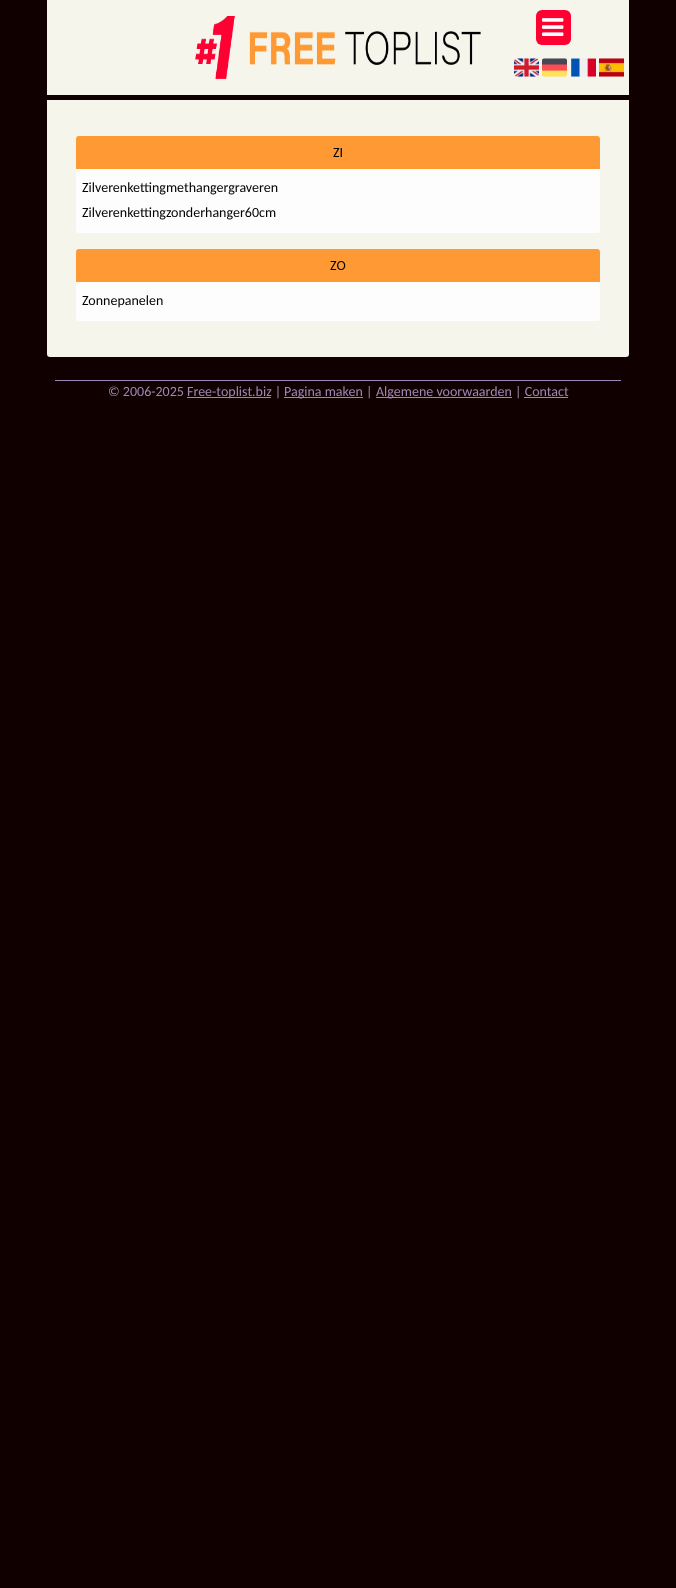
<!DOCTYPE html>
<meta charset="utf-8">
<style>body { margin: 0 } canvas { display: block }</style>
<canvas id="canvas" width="676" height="1588"></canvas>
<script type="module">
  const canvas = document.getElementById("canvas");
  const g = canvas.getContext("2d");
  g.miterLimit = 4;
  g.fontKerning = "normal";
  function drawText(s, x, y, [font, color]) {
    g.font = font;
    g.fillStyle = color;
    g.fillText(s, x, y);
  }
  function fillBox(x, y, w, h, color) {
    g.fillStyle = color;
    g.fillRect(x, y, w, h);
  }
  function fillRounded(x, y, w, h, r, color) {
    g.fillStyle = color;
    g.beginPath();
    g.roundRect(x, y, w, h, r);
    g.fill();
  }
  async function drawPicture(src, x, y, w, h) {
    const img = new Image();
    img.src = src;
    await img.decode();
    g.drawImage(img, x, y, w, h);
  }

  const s1 = ["14px Carlito", "#000000"];
  const s2 = ["14px Carlito", "#A086B5"];

  fillBox(0, 0, 676, 1588, "#110000");
  fillBox(47, 0, 582, 95, "#F5F5EB");
  await drawPicture("pic1.png", 195, 16, 286, 63);
  fillRounded(536, 10, 35, 35, 6, "#FF0033");
  await drawPicture("pic2.png", 542, 18, 22, 18);
  await drawPicture("pic3.png", 514, 58, 25, 19);
  await drawPicture("pic4.png", 542, 58, 25, 19);
  await drawPicture("pic5.png", 571, 58, 25, 19);
  await drawPicture("pic6.png", 599, 58, 25, 19);
  g.fillStyle = "#F5F5EB";
  g.beginPath();
  g.roundRect(47, 100, 582, 257, [0, 0, 3, 3]);
  g.fill();
  g.fillStyle = "#FF9933";
  g.beginPath();
  g.roundRect(76, 136, 524, 33, [3, 3, 0, 0]);
  g.fill();
  drawText("ZI", 333, 157, s1);
  g.fillStyle = "#FDFDFD";
  g.beginPath();
  g.roundRect(76, 169, 524, 64, [0, 0, 3, 3]);
  g.fill();
  drawText("Zilverenkettingmethangergraveren", 82, 192, s1);
  drawText("Zilverenkettingzonderhanger60cm", 82, 217, s1);
  g.fillStyle = "#FF9933";
  g.beginPath();
  g.roundRect(76, 249, 524, 33, [3, 3, 0, 0]);
  g.fill();
  drawText("ZO", 330, 270, s1);
  g.fillStyle = "#FDFDFD";
  g.beginPath();
  g.roundRect(76, 282, 524, 39, [0, 0, 3, 3]);
  g.fill();
  drawText("Zonnepanelen", 82, 305, s1);
  fillBox(55, 380, 566, 1, "#A086B5");
  drawText("© 2006-2025", 108, 396, s2);
  fillBox(187, 397, 84, 1, "#A086B5");
  drawText("Free-toplist.biz |", 187, 396, s2);
  fillBox(284, 397, 79, 1, "#A086B5");
  drawText("Pagina maken |", 284, 396, s2);
  fillBox(376, 397, 136, 1, "#A086B5");
  drawText("Algemene voorwaarden | Contact", 376, 396, s2);
  fillBox(524, 397, 44, 1, "#A086B5");
</script>
